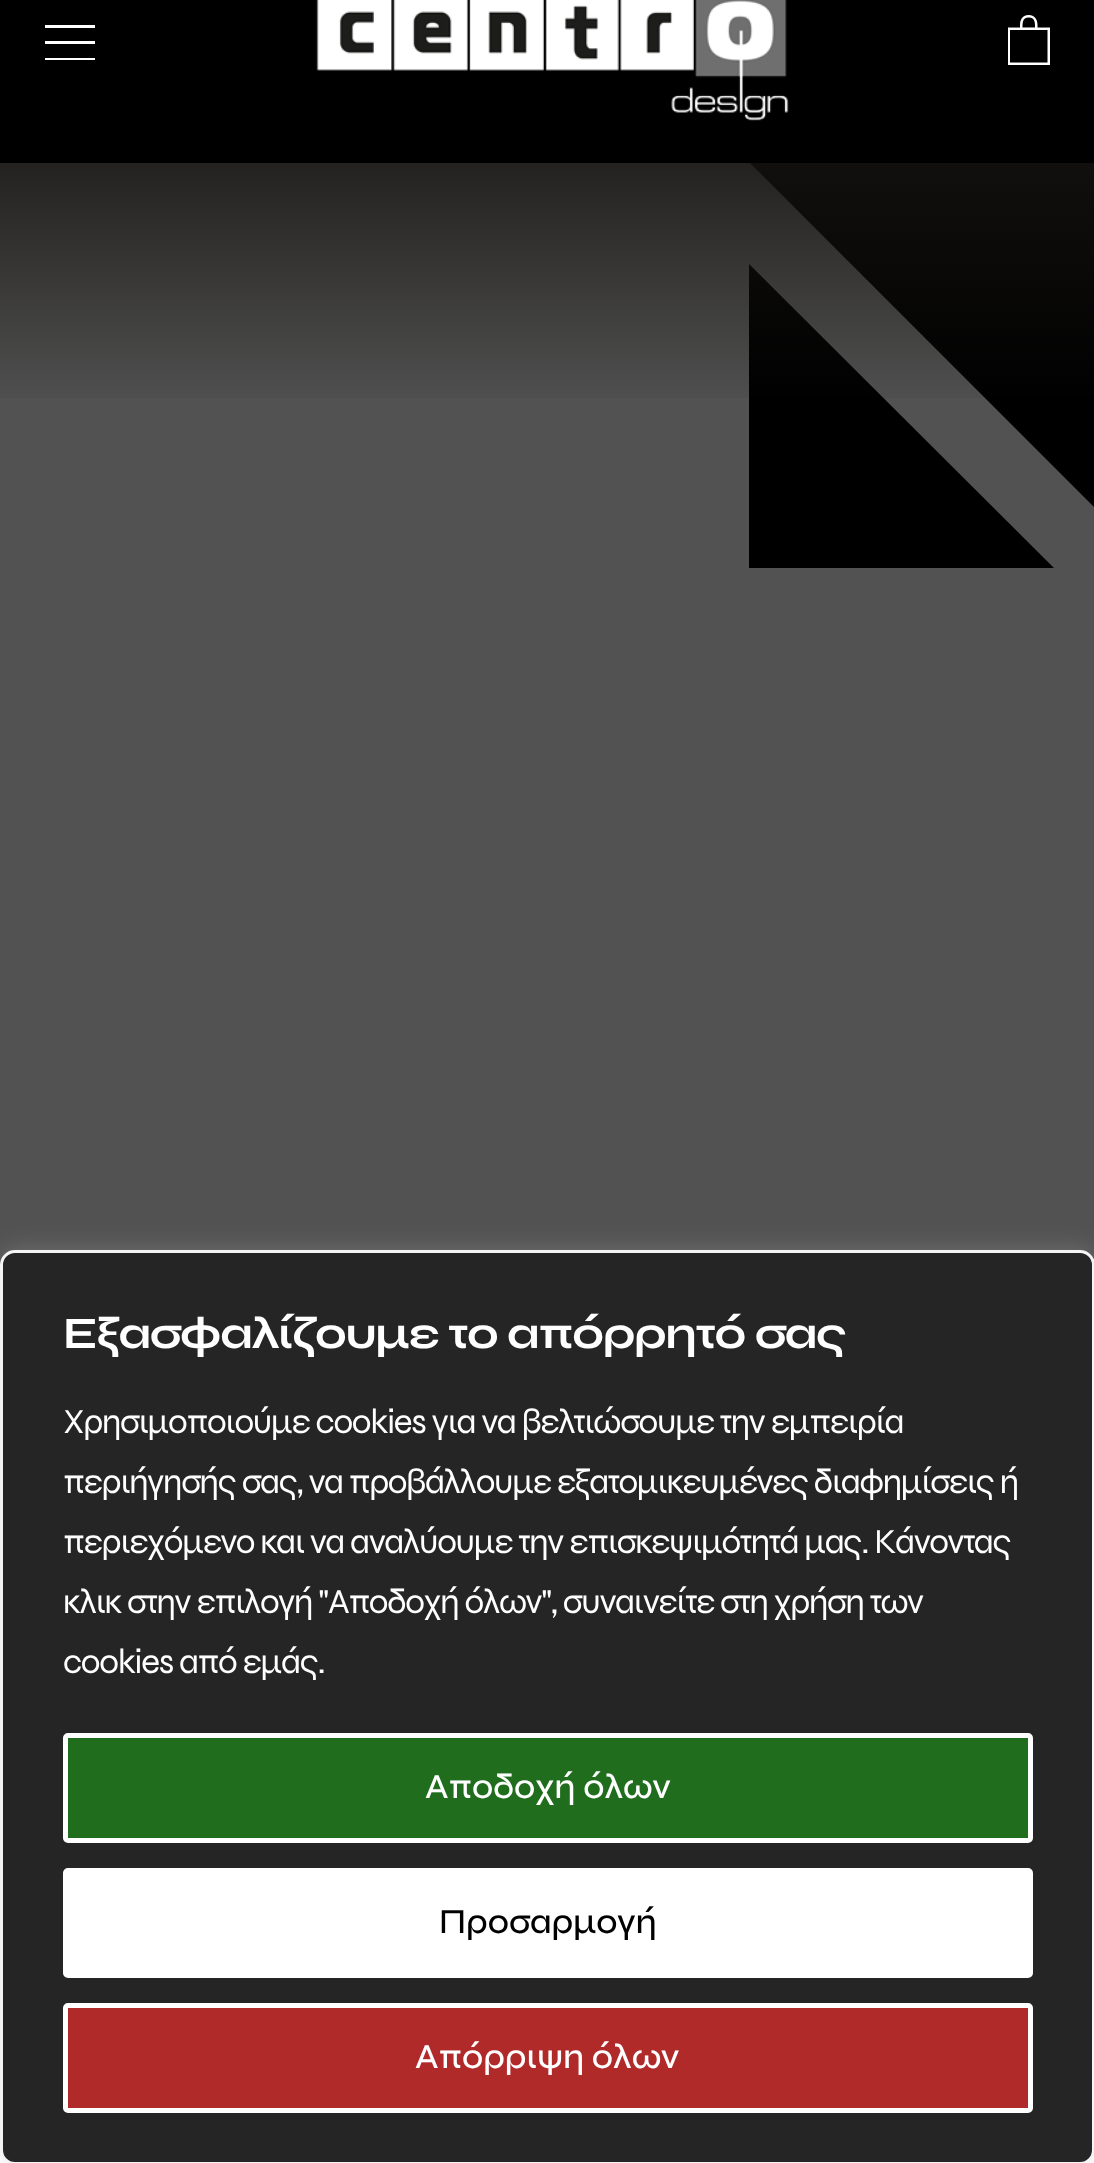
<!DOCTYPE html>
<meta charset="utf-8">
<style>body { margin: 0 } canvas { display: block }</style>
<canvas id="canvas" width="1094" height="2163"></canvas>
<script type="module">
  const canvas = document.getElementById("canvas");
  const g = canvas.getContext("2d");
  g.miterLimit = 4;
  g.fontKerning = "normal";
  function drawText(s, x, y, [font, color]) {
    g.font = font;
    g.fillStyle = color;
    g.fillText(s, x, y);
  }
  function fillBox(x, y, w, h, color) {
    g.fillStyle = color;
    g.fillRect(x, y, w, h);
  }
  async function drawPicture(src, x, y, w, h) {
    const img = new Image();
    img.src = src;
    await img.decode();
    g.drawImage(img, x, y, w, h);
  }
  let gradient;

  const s1 = ["bold 45px Syne", "#FFFFFF"];
  const s2 = ["35px Syne", "#FFFFFF"];
  const s3 = ["500 35px Syne", "#FFFFFF"];
  const s4 = ["500 35px Syne", "#000000"];

  fillBox(0, 0, 1094, 2163, "#FFFFFF");
  fillBox(0, 0, 1094, 163, "#000000");
  g.fillStyle = "#FFFFFF";
  g.beginPath();
  g.moveTo(45, 60);
  g.lineTo(45, 58);
  g.lineTo(95, 58);
  g.lineTo(95, 60);
  g.closePath();
  g.moveTo(45, 41);
  g.lineTo(95, 41);
  g.lineTo(95, 44);
  g.lineTo(45, 44);
  g.closePath();
  g.moveTo(45, 25);
  g.lineTo(95, 25);
  g.lineTo(95, 28);
  g.lineTo(45, 28);
  g.closePath();
  g.fill();
  await drawPicture("pic1.png", 316, 0, 473, 121);
  await drawPicture("pic2.png", 1008, 15, 42, 50);
  fillBox(749, 163, 345, 405, "#000000");
  g.save();
  g.beginPath();
  g.rect(0, 163, 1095, 1622);
  g.clip();
  g.fillStyle = "#525252";
  g.beginPath();
  g.moveTo(749, 162);
  g.lineTo(-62, 162);
  g.lineTo(-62, 1786);
  g.lineTo(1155, 1786);
  g.lineTo(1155, 568);
  g.closePath();
  g.moveTo(749, 568);
  g.lineTo(749, 264);
  g.lineTo(1054, 568);
  g.closePath();
  g.fill();
  g.restore();
  gradient = g.createLinearGradient(548, 162, 548, 413);
  gradient.addColorStop(0, "rgba(22, 20, 18, 0.78)");
  gradient.addColorStop(1, "rgba(22, 20, 18, 0)");
  g.fillStyle = gradient;
  g.fillRect(0, 163, 1094, 235);
  g.fillStyle = "rgba(172, 171, 171, 0.3)";
  g.filter = "blur(12.5px)";
  g.beginPath();
  g.roundRect(0, 1248, 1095, 915, 15);
  g.fill();
  g.filter = "none";
  g.fillStyle = "#252525";
  g.beginPath();
  g.roundRect(1.5, 1251.5, 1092, 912, 13.5);
  g.fill();
  g.strokeStyle = "#F4F4F4";
  g.lineWidth = 3;
  g.stroke();
  g.letterSpacing = "-1.25px";
  drawText("Εξασφαλίζουμε το απόρρητό σας", 63, 1348, s1);
  drawText("Χρησιμοποιούμε cookies για να βελτιώσουμε την εμπειρία", 63, 1433, s2);
  drawText("περιήγησής σας, να προβάλλουμε εξατομικευμένες διαφημίσεις ή", 63, 1493, s2);
  drawText("περιεχόμενο και να αναλύουμε την επισκεψιμότητά μας. Κάνοντας", 63, 1553, s2);
  drawText("κλικ στην επιλογή \"Αποδοχή όλων\", συναινείτε στη χρήση των", 63, 1613, s2);
  drawText("cookies από εμάς.", 63, 1673, s2);
  g.fillStyle = "#206D1D";
  g.beginPath();
  g.roundRect(65.5, 1735.5, 965, 105, 2.5);
  g.fill();
  g.strokeStyle = "#FFFFFF";
  g.lineWidth = 5;
  g.stroke();
  g.letterSpacing = "0px";
  drawText("Αποδοχή όλων", 425, 1798, s3);
  g.beginPath();
  g.roundRect(65.5, 1870.5, 965, 105, 2.5);
  g.fill();
  g.stroke();
  drawText("Προσαρμογή", 439, 1933, s4);
  g.fillStyle = "#B02A2A";
  g.beginPath();
  g.roundRect(65.5, 2005.5, 965, 105, 2.5);
  g.fill();
  g.stroke();
  drawText("Απόρριψη όλων", 415, 2068, s3);
</script>
